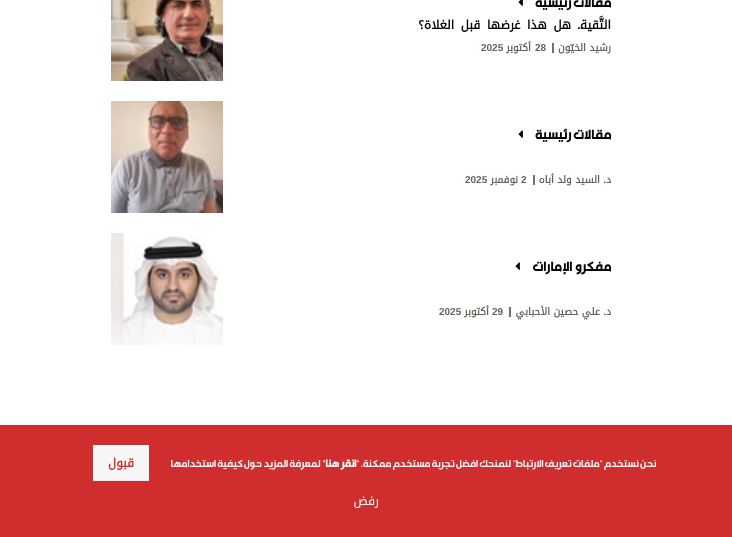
<!DOCTYPE html>
<meta charset="utf-8">
<style>body { margin: 0 } canvas { display: block }</style>
<canvas id="canvas" width="732" height="537"></canvas>
<script type="module">
  const canvas = document.getElementById("canvas");
  const g = canvas.getContext("2d");
  g.miterLimit = 4;
  g.fontKerning = "normal";
  function drawText(s, x, y, [font, color]) {
    g.font = font;
    g.fillStyle = color;
    g.fillText(s, x, y);
  }
  function fillBox(x, y, w, h, color) {
    g.fillStyle = color;
    g.fillRect(x, y, w, h);
  }
  async function drawPicture(src, x, y, w, h) {
    const img = new Image();
    img.src = src;
    await img.decode();
    g.drawImage(img, x, y, w, h);
  }

  const s1 = ["16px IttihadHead", "#000000"];
  const s2 = ["bold 12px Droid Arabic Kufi", "#000000"];
  const s3 = ["bold 12px Liberation Sans", "#000000"];
  const s4 = ["bold 10px Droid Arabic Kufi", "#696158"];
  const s5 = ["bold 10px Liberation Sans", "#696158"];
  const s6 = ["bold 10px Liberation Serif", "#696158"];
  const s7 = ["12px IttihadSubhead", "#FFFFFF"];
  const s8 = ["bold 12px IttihadSubhead", "#FFFFFF"];
  const s9 = ["bold 12px Droid Arabic Kufi", "#D02D2E"];
  const s10 = ["12px Droid Arabic Kufi", "#FFFFFF"];

  fillBox(0, 0, 732, 537, "#FFFFFF");
  g.direction = "rtl";
  drawText("مقالات رئيسية", 611, 7, s1);
  await drawPicture("pic1.png", 518, 0, 5, 6);
  g.letterSpacing = "-0.4px";
  drawText("التَّقية", 611, 29, s2);
  drawText("..", 583, 29, s3);
  g.wordSpacing = "3px";
  drawText("هل هذا غرضها قبل الغلاة؟", 571, 29, s2);
  g.letterSpacing = "0px";
  g.wordSpacing = "0px";
  drawText("رشيد الخيّون", 611, 51, s4);
  fillBox(552, 43, 2, 10, "#727272");
  g.direction = "ltr";
  drawText("28", 535, 51, s5);
  g.direction = "rtl";
  drawText("أكتوبر", 531, 51, s4);
  g.direction = "ltr";
  drawText("2025", 481, 51, s5);
  await drawPicture("pic2.png", 111, 0, 112, 81);
  g.direction = "rtl";
  drawText("مقالات رئيسية", 611, 139, s1);
  await drawPicture("pic3.png", 518, 130, 5, 8);
  drawText("د", 611, 183, s4);
  drawText(".", 606, 183, s6);
  drawText("السيد ولد أباه", 600, 183, s4);
  fillBox(533, 175, 2, 10, "#727272");
  g.direction = "ltr";
  drawText("2", 521, 183, s5);
  g.direction = "rtl";
  drawText("نوفمبر", 518, 183, s4);
  g.direction = "ltr";
  drawText("2025", 465, 183, s5);
  await drawPicture("pic4.png", 111, 101, 112, 112);
  g.direction = "rtl";
  drawText("مفكرو الإمارات", 611, 271, s1);
  await drawPicture("pic3.png", 515, 262, 5, 8);
  drawText("د", 611, 315, s4);
  drawText(".", 606, 315, s6);
  drawText("علي حصين الأحبابي", 600, 315, s4);
  fillBox(509, 307, 2, 10, "#727272");
  g.direction = "ltr";
  drawText("29", 492, 315, s5);
  g.direction = "rtl";
  drawText("أكتوبر", 489, 315, s4);
  g.direction = "ltr";
  drawText("2025", 439, 315, s5);
  await drawPicture("pic5.png", 111, 233, 112, 112);
  fillBox(0, 425, 732, 112, "#D02D2E");
  g.direction = "rtl";
  drawText("نحن نستخدم \"ملفات تعريف الارتباط\" لنمنحك افضل تجربة مستخدم ممكنة. \"", 656, 467, s7);
  drawText("انقر هنا", 356, 467, s8);
  drawText("\" لمعرفة المزيد حول كيفية استخدامها", 325, 467, s7);
  fillBox(93, 445, 56, 36, "#F6F6F6");
  drawText("قبول", 134, 467, s9);
  drawText("رفض", 379, 505, s10);
</script>
